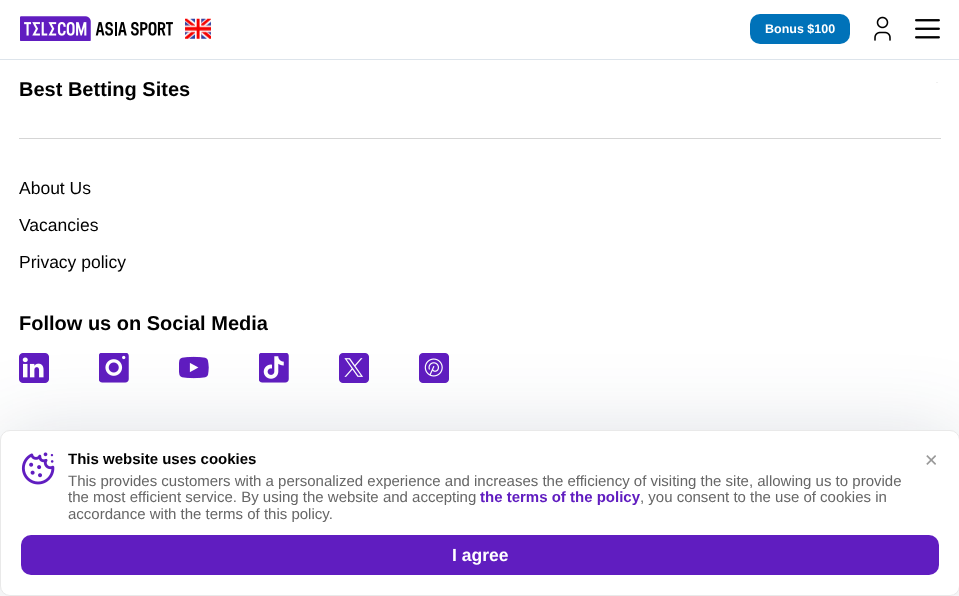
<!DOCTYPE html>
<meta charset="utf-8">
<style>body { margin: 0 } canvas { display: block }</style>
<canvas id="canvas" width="959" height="596"></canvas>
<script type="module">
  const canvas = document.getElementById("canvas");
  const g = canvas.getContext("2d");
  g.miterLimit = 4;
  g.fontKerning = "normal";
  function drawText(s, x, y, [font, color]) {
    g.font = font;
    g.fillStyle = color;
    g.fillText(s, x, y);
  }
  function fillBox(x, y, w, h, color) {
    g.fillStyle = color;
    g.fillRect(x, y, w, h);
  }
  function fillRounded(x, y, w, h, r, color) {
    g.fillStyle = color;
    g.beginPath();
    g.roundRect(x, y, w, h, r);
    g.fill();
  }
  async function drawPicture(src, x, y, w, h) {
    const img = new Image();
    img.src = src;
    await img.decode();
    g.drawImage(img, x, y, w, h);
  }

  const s1 = ["bold 12.5px Liberation Sans", "#FFFFFF"];
  const s2 = ["bold 20px Liberation Sans", "#000000"];
  const s3 = ["17.5px Liberation Sans", "#000000"];
  const s4 = ["bold 15px Liberation Sans", "#000000"];
  const s5 = ["15px Liberation Sans", "#666666"];
  const s6 = ["bold 15px Liberation Sans", "#601DC0"];
  const s7 = ["bold 17.5px Liberation Sans", "#FFFFFF"];

  fillBox(0, 0, 959, 596, "#FFFFFF");
  fillBox(0, 59, 959, 1, "#DDE4EB");
  await drawPicture("pic1.png", 20, 16, 153, 25);
  await drawPicture("pic2.png", 185, 18, 26, 21);
  fillRounded(750, 14, 100, 30, 10, "#0072B9");
  drawText("Bonus $100", 765, 33, s1);
  await drawPicture("pic3.png", 874, 16, 17, 25);
  await drawPicture("pic4.png", 915, 19, 25, 20);
  fillBox(19, 138, 922, 1, "#D5D5D5");
  drawText("Best Betting Sites", 19, 96, s2);
  fillBox(936, 82, 2, 1, "#F0F0F0");
  drawText("About Us", 19, 194, s3);
  drawText("Vacancies", 19, 231, s3);
  drawText("Privacy policy", 19, 268, s3);
  drawText("Follow us on Social Media", 19, 330, s2);
  await drawPicture("pic5.png", 19, 353, 30, 30);
  await drawPicture("pic6.png", 99, 353, 30, 30);
  await drawPicture("pic7.png", 179, 356, 30, 23);
  await drawPicture("pic8.png", 259, 353, 30, 30);
  await drawPicture("pic9.png", 339, 353, 30, 30);
  await drawPicture("pic10.png", 419, 353, 30, 30);
  g.fillStyle = "rgba(26, 42, 77, 0.16)";
  g.filter = "blur(40px)";
  g.beginPath();
  g.roundRect(0, 435, 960, 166, 10);
  g.fill();
  g.filter = "none";
  g.fillStyle = "#FFFFFF";
  g.beginPath();
  g.roundRect(0.5, 430.5, 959, 165, 9.5);
  g.fill();
  g.strokeStyle = "#E9E9E9";
  g.stroke();
  await drawPicture("pic11.png", 21, 452, 34, 33);
  drawText("This website uses cookies", 68, 464, s4);
  drawText("This provides customers with a personalized experience and increases the efficiency of visiting the site, allowing us to provide", 68, 486, s5);
  drawText("the most efficient service. By using the website and accepting", 68, 502, s5);
  drawText("the terms of the policy", 480, 502, s6);
  drawText(", you consent to the use of cookies in", 640, 502, s5);
  drawText("accordance with the terms of this policy.", 68, 519, s5);
  await drawPicture("pic12.png", 926, 455, 10, 10);
  fillRounded(21, 535, 918, 40, 10, "#601DC0");
  drawText("I agree", 452, 561, s7);
</script>
